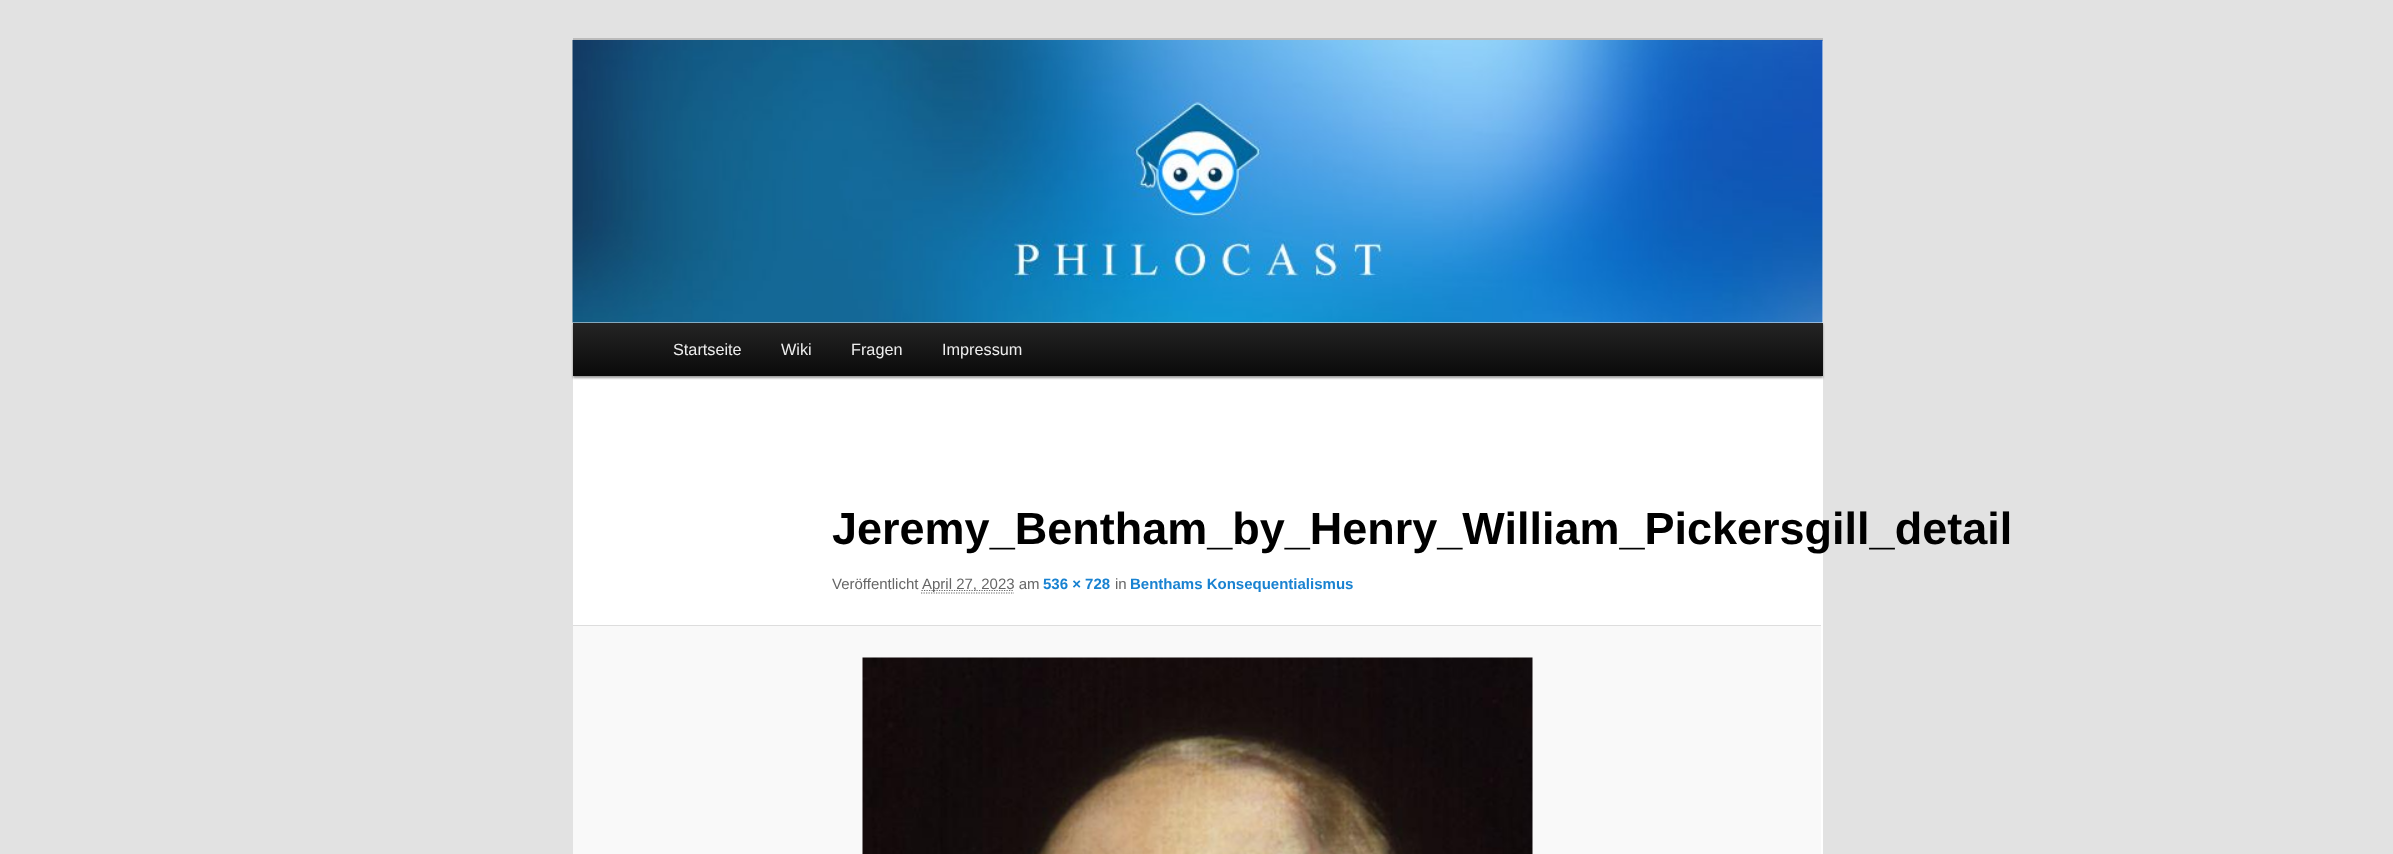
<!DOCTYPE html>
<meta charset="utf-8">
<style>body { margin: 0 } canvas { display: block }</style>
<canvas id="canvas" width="2393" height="854"></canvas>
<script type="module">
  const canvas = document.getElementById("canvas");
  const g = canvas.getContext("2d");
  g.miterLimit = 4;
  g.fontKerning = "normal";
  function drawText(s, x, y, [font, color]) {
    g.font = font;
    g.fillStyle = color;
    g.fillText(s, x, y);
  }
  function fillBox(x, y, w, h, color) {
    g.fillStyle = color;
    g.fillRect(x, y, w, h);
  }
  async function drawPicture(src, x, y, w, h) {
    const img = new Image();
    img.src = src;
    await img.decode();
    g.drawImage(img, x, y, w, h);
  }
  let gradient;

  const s1 = ["16.25px Liberation Sans", "#EEEEEE"];
  const s2 = ["bold 45px Liberation Sans", "#000000"];
  const s3 = ["15px Liberation Sans", "#666666"];
  const s4 = ["bold 15px Liberation Sans", "#1982D1"];

  fillBox(0, 0, 2393, 854, "#E2E2E2");
  fillBox(573, 41, 1250, 813, "#FFFFFF");
  fillBox(573, 38, 1250, 3, "#BBBBBB");
  g.fillStyle = "rgba(0, 0, 0, 0.4)";
  g.filter = "blur(1px)";
  g.beginPath();
  g.rect(573, 324, 1250, 54);
  g.fill();
  g.filter = "none";
  await drawPicture("pic1.png", 572, 40, 1251, 283);
  gradient = g.createLinearGradient(1198, 322, 1198, 376);
  gradient.addColorStop(0, "#252525");
  gradient.addColorStop(1, "#0A0A0A");
  g.fillStyle = gradient;
  g.fillRect(573, 323, 1250, 53);
  drawText("Startseite", 673, 355, s1);
  drawText("Wiki", 781, 355, s1);
  drawText("Fragen", 851, 355, s1);
  drawText("Impressum", 942, 355, s1);
  drawText("Jeremy_Bentham_by_Henry_William_Pickersgill_detail", 832, 544, s2);
  drawText("Veröffentlicht", 832, 589, s3);
  g.beginPath();
  g.moveTo(921, 593);
  g.lineTo(1014, 593);
  g.strokeStyle = "#666666";
  g.lineWidth = 1.2;
  g.setLineDash([1.25, 1.25]);
  g.stroke();
  g.beginPath();
  g.moveTo(921.5, 590.5);
  g.lineTo(1014, 590.5);
  g.stroke();
  drawText("April 27, 2023 am", 922, 589, s3);
  drawText("536 × 728", 1043, 589, s4);
  drawText("in", 1115, 589, s3);
  drawText("Benthams Konsequentialismus", 1130, 589, s4);
  fillBox(573, 626, 1248, 228, "#F9F9F9");
  fillBox(573, 625, 1248, 1, "#DDDDDD");
  await drawPicture("pic2.png", 862, 657, 671, 197);
</script>
